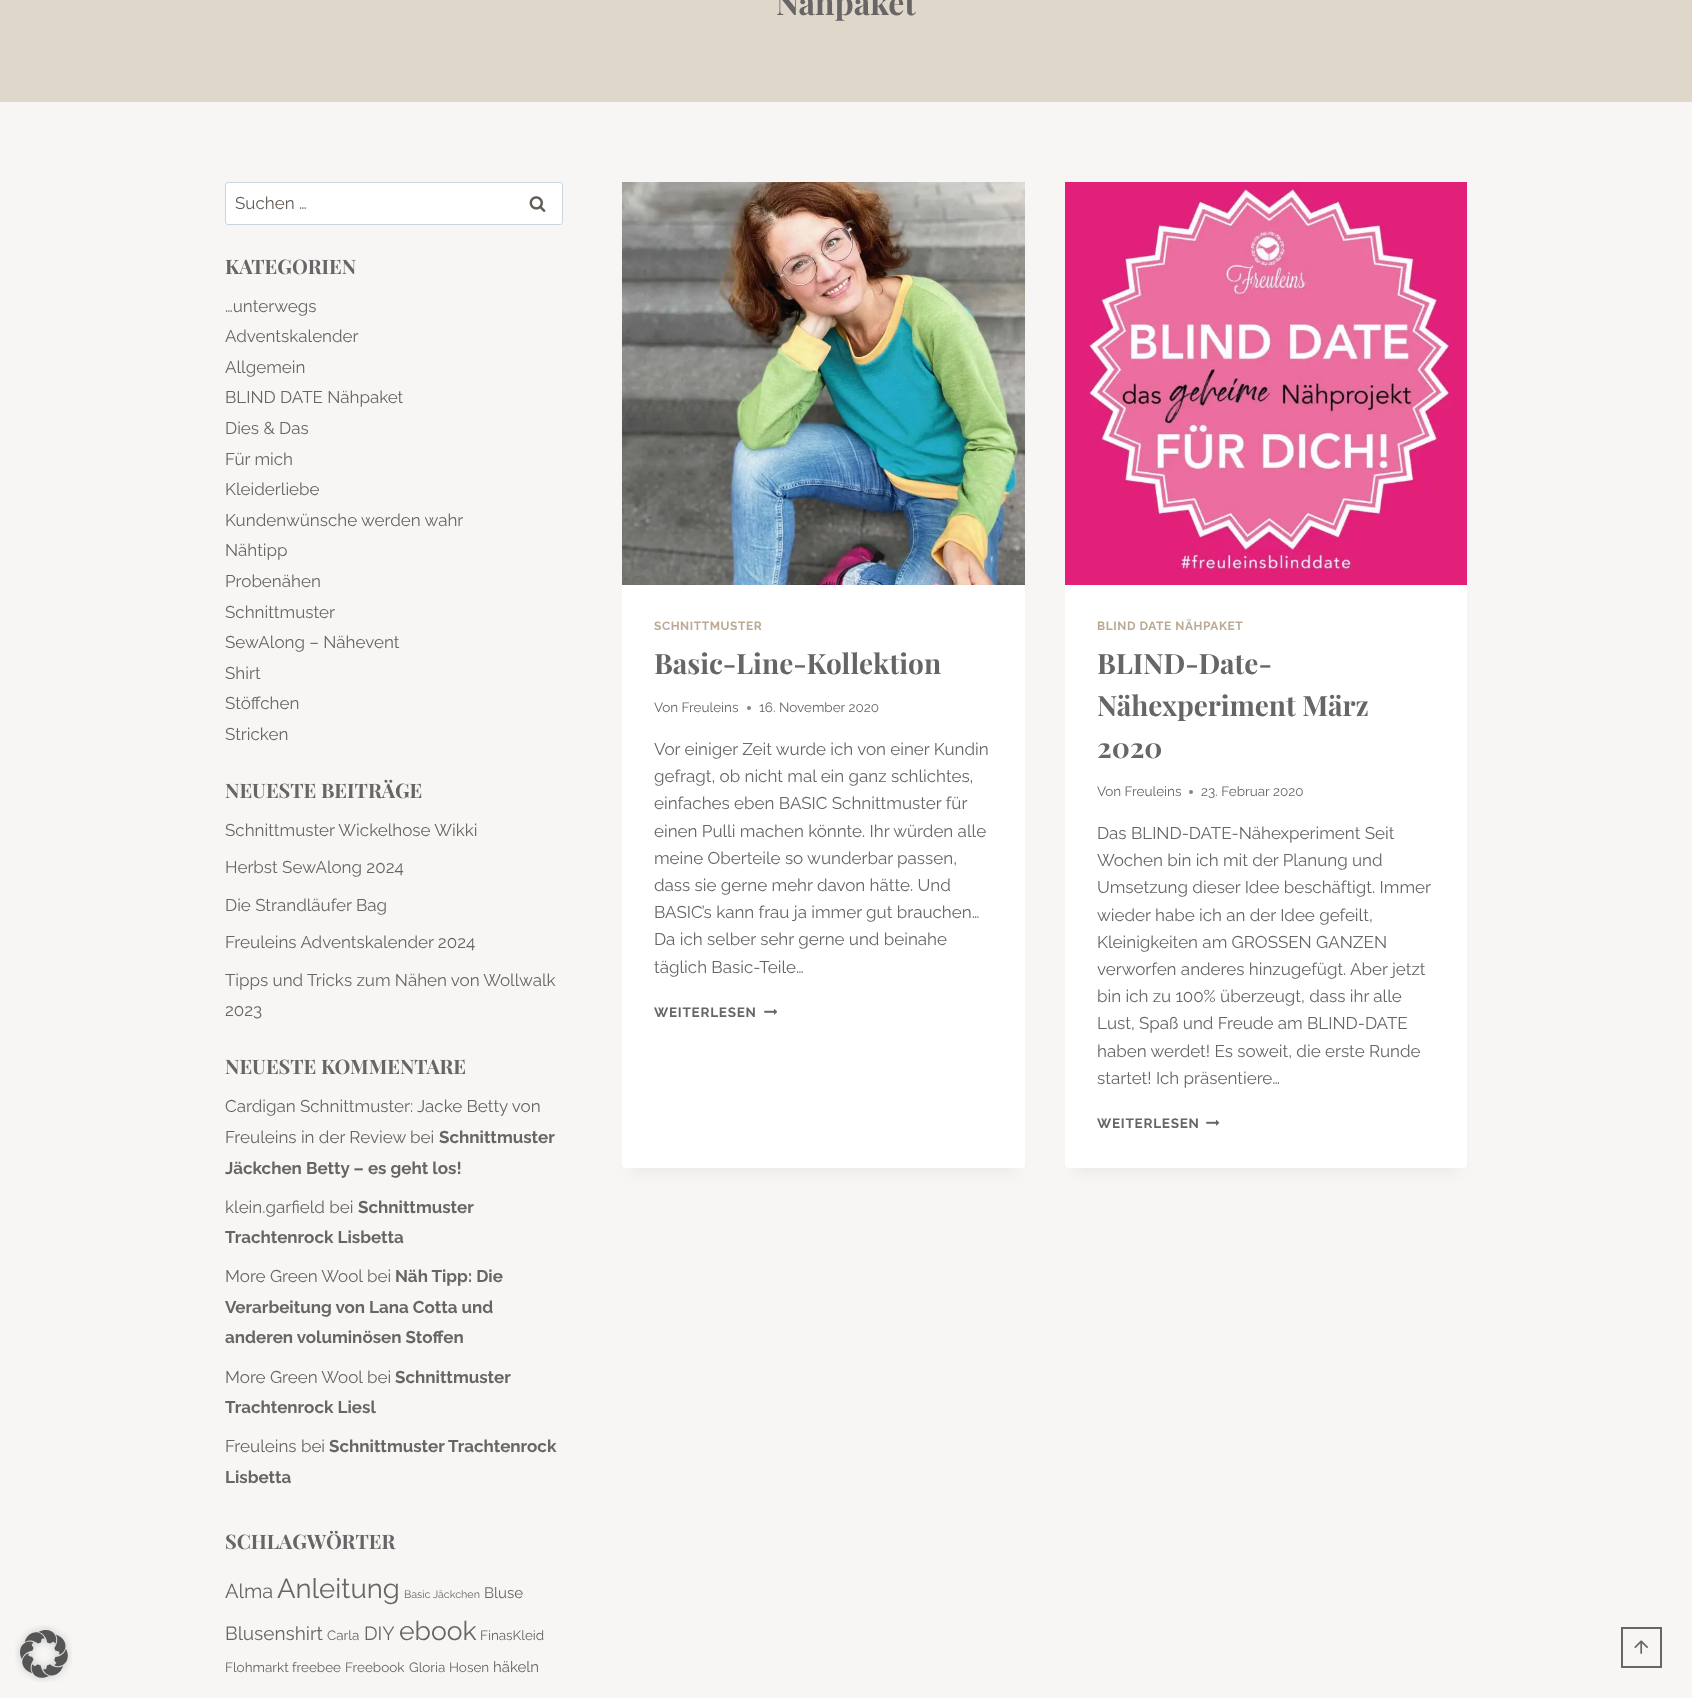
<!DOCTYPE html>
<meta charset="utf-8">
<style>body { margin: 0 } canvas { display: block }</style>
<canvas id="canvas" width="1692" height="1698"></canvas>
<script type="module">
  const canvas = document.getElementById("canvas");
  const g = canvas.getContext("2d");
  g.miterLimit = 4;
  g.fontKerning = "normal";
  function drawText(s, x, y, [font, color]) {
    g.font = font;
    g.fillStyle = color;
    g.fillText(s, x, y);
  }
  function fillBox(x, y, w, h, color) {
    g.fillStyle = color;
    g.fillRect(x, y, w, h);
  }
  function fillRounded(x, y, w, h, r, color) {
    g.fillStyle = color;
    g.beginPath();
    g.roundRect(x, y, w, h, r);
    g.fill();
  }
  async function drawPicture(src, x, y, w, h) {
    const img = new Image();
    img.src = src;
    await img.decode();
    g.drawImage(img, x, y, w, h);
  }

  const s1 = ["bold 32px Playfair Display", "#686566"];
  const s2 = ["17px Raleway", "#625D52"];
  const s3 = ["bold 20px Playfair Display", "#686566"];
  const s4 = ["17px Raleway", "#686566"];
  const s5 = ["bold 17px Raleway", "#686566"];
  const s6 = ["20px Raleway", "#686566"];
  const s7 = ["27.5px Raleway", "#686566"];
  const s8 = ["10.75px Raleway", "#686566"];
  const s9 = ["15px Raleway", "#686566"];
  const s10 = ["19px Raleway", "#686566"];
  const s11 = ["13.5px Raleway", "#686566"];
  const s12 = ["26.5px Raleway", "#686566"];
  const s13 = ["bold 11.9px Raleway", "#BBAA94"];
  const s14 = ["bold 28px Playfair Display", "#686566"];
  const s15 = ["bold 13.5px Raleway", "#686566"];

  fillBox(0, 0, 1692, 1698, "#F8F6F4");
  await drawPicture("pic1.png", 15, 1625, 57, 57);
  fillBox(0, 0, 1692, 102, "#DED7CA");
  drawText("Nähpaket", 776, 15, s1);
  g.fillStyle = "#FFFFFF";
  g.beginPath();
  g.roundRect(225.5, 182.5, 337, 42, 2.5);
  g.fill();
  g.strokeStyle = "#CBD5E0";
  g.stroke();
  drawText("Suchen …", 235, 209, s2);
  await drawPicture("pic2.png", 529, 196, 17, 16);
  drawText("KATEGORIEN", 225, 274, s3);
  drawText("…unterwegs", 225, 312, s4);
  drawText("Adventskalender", 225, 342, s4);
  drawText("Allgemein", 225, 373, s4);
  drawText("BLIND DATE Nähpaket", 225, 403, s4);
  drawText("Dies & Das", 225, 434, s4);
  drawText("Für mich", 225, 465, s4);
  drawText("Kleiderliebe", 225, 495, s4);
  drawText("Kundenwünsche werden wahr", 225, 526, s4);
  drawText("Nähtipp", 225, 556, s4);
  drawText("Probenähen", 225, 587, s4);
  drawText("Schnittmuster", 225, 618, s4);
  drawText("SewAlong – Nähevent", 225, 648, s4);
  drawText("Shirt", 225, 679, s4);
  drawText("Stöffchen", 225, 709, s4);
  drawText("Stricken", 225, 740, s4);
  drawText("NEUESTE BEITRÄGE", 225, 798, s3);
  drawText("Schnittmuster Wickelhose Wikki", 225, 836, s4);
  drawText("Herbst SewAlong 2024", 225, 873, s4);
  drawText("Die Strandläufer Bag", 225, 911, s4);
  drawText("Freuleins Adventskalender 2024", 225, 948, s4);
  drawText("Tipps und Tricks zum Nähen von Wollwalk", 225, 986, s4);
  drawText("2023", 225, 1016, s4);
  drawText("NEUESTE KOMMENTARE", 225, 1074, s3);
  drawText("Cardigan Schnittmuster: Jacke Betty von", 225, 1112, s4);
  drawText("Freuleins in der Review", 225, 1143, s4);
  drawText("bei", 410, 1143, s4);
  drawText("Schnittmuster", 439, 1143, s5);
  drawText("Jäckchen Betty – es geht los!", 225, 1174, s5);
  drawText("klein.garfield bei", 225, 1213, s4);
  drawText("Schnittmuster", 358, 1213, s5);
  drawText("Trachtenrock Lisbetta", 225, 1243, s5);
  drawText("More Green Wool", 225, 1282, s4);
  drawText("bei", 367, 1282, s4);
  drawText("Näh Tipp: Die", 395, 1282, s5);
  drawText("Verarbeitung von Lana Cotta und", 225, 1313, s5);
  drawText("anderen voluminösen Stoffen", 225, 1343, s5);
  drawText("More Green Wool", 225, 1383, s4);
  drawText("bei", 367, 1383, s4);
  drawText("Schnittmuster", 395, 1383, s5);
  drawText("Trachtenrock Liesl", 225, 1413, s5);
  drawText("Freuleins bei", 225, 1452, s4);
  drawText("Schnittmuster Trachtenrock", 329, 1452, s5);
  drawText("Lisbetta", 225, 1483, s5);
  drawText("SCHLAGWÖRTER", 225, 1549, s3);
  drawText("Alma", 225, 1598, s6);
  drawText("Anleitung", 277, 1598, s7);
  drawText("Basic Jäckchen", 404, 1598, s8);
  drawText("Bluse", 484, 1598, s9);
  drawText("Blusenshirt", 225, 1640, s10);
  drawText("Carla", 327, 1640, s11);
  drawText("DIY", 364, 1640, s10);
  drawText("ebook", 399, 1640, s12);
  drawText("FinasKleid", 480, 1640, s11);
  drawText("Flohmarkt", 225, 1672, s11);
  drawText("freebee", 292, 1672, s11);
  drawText("Freebook", 345, 1672, s11);
  drawText("Gloria", 409, 1672, s11);
  drawText("Hosen", 449, 1672, s11);
  drawText("häkeln", 493, 1672, s9);
  g.fillStyle = "rgba(0, 0, 0, 0.05)";
  g.filter = "blur(7.5px)";
  g.beginPath();
  g.rect(632, 207, 383, 966);
  g.fill();
  g.filter = "none";
  fillRounded(622, 182, 403, 986, 4, "#FFFFFF");
  await drawPicture("pic3.png", 622, 182, 403, 403);
  g.letterSpacing = "0.6px";
  drawText("SCHNITTMUSTER", 654, 630, s13);
  g.letterSpacing = "0px";
  drawText("Basic-Line-Kollektion", 654, 674, s14);
  drawText("Von Freuleins", 654, 712, s11);
  g.fillStyle = "#858585";
  g.beginPath();
  g.arc(749, 708, 2, 0, Math.PI * 2);
  g.fill();
  drawText("16. November 2020", 759, 712, s11);
  drawText("Vor einiger Zeit wurde ich von einer Kundin", 654, 755, s4);
  drawText("gefragt, ob nicht mal ein ganz schlichtes,", 654, 782, s4);
  drawText("einfaches eben BASIC Schnittmuster für", 654, 809, s4);
  drawText("einen Pulli machen könnte. Ihr würden alle", 654, 837, s4);
  drawText("meine Oberteile so wunderbar passen,", 654, 864, s4);
  drawText("dass sie gerne mehr davon hätte. Und", 654, 891, s4);
  drawText("BASIC’s kann frau ja immer gut brauchen…", 654, 918, s4);
  drawText("Da ich selber sehr gerne und beinahe", 654, 945, s4);
  drawText("täglich Basic-Teile…", 654, 973, s4);
  g.letterSpacing = "0.75px";
  drawText("WEITERLESEN", 654, 1017, s15);
  await drawPicture("pic4.png", 764, 1009, 13, 6);
  g.fillStyle = "rgba(0, 0, 0, 0.05)";
  g.filter = "blur(7.5px)";
  g.beginPath();
  g.rect(1075, 207, 382, 966);
  g.fill();
  g.filter = "none";
  fillRounded(1065, 182, 402, 986, 4, "#FFFFFF");
  await drawPicture("pic5.png", 1065, 182, 402, 403);
  g.letterSpacing = "0.6px";
  drawText("BLIND DATE NÄHPAKET", 1097, 630, s13);
  g.letterSpacing = "0px";
  drawText("BLIND-Date-", 1097, 674, s14);
  drawText("Nähexperiment März", 1097, 716, s14);
  drawText("2020", 1097, 758, s14);
  drawText("Von Freuleins", 1097, 796, s11);
  g.fillStyle = "#858585";
  g.beginPath();
  g.arc(1191, 792, 2, 0, Math.PI * 2);
  g.fill();
  drawText("23. Februar 2020", 1201, 796, s11);
  drawText("Das BLIND-DATE-Nähexperiment Seit", 1097, 839, s4);
  drawText("Wochen bin ich mit der Planung und", 1097, 866, s4);
  drawText("Umsetzung dieser Idee beschäftigt. Immer", 1097, 893, s4);
  drawText("wieder habe ich an der Idee gefeilt,", 1097, 921, s4);
  drawText("Kleinigkeiten am GROSSEN GANZEN", 1097, 948, s4);
  drawText("verworfen anderes hinzugefügt. Aber jetzt", 1097, 975, s4);
  drawText("bin ich zu 100% überzeugt, dass ihr alle", 1097, 1002, s4);
  drawText("Lust, Spaß und Freude am BLIND-DATE", 1097, 1029, s4);
  drawText("haben werdet! Es soweit, die erste Runde", 1097, 1057, s4);
  drawText("startet! Ich präsentiere…", 1097, 1084, s4);
  g.letterSpacing = "0.75px";
  drawText("WEITERLESEN", 1097, 1128, s15);
  await drawPicture("pic6.png", 1206, 1120, 14, 6);
  g.strokeStyle = "#666666";
  g.lineWidth = 2;
  g.strokeRect(1622, 1628, 39, 39);
  await drawPicture("pic7.png", 1634, 1640, 14, 14);
</script>
